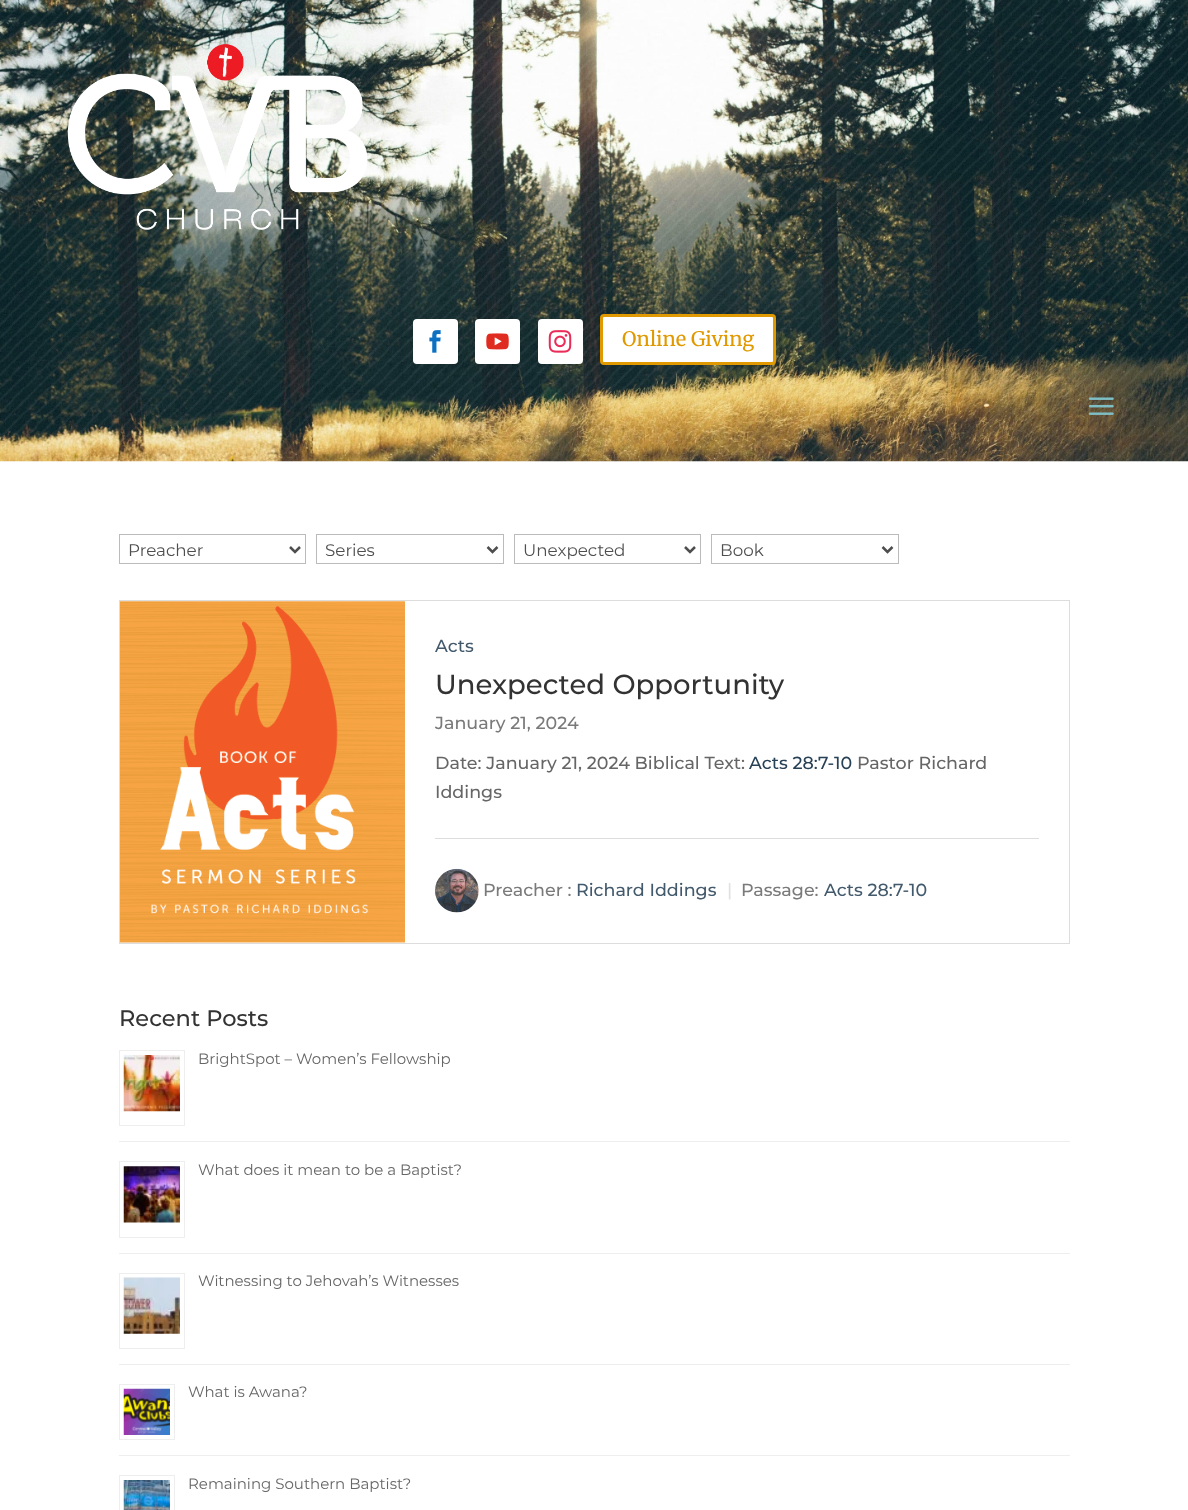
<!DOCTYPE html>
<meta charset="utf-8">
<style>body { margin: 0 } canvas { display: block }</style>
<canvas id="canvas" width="1188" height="1510"></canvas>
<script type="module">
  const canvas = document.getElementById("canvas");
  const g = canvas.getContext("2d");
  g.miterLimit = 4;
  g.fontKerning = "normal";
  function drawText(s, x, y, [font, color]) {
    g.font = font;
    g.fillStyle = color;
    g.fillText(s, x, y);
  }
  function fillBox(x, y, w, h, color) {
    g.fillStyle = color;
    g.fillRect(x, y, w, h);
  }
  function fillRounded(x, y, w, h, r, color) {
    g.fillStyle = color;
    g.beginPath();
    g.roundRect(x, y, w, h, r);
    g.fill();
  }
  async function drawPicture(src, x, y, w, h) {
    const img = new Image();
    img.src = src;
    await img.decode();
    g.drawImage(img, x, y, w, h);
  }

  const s1 = ["20px Merriweather", "#E09900"];
  const s2 = ["16.75px Montserrat", "#4E4E4E"];
  const s3 = ["500 17.5px Montserrat", "#435A6C"];
  const s4 = ["500 27.5px Montserrat", "#333333"];
  const s5 = ["500 17.5px Montserrat", "#7A7A7A"];
  const s6 = ["500 17.5px Montserrat", "#666666"];
  const s7 = ["500 17.5px Montserrat", "#274156"];
  const s8 = ["500 17.5px Montserrat", "#E1E1E1"];
  const s9 = ["500 22.5px Montserrat", "#333333"];
  const s10 = ["15px Montserrat", "#666666"];

  fillBox(0, 0, 1188, 1510, "#FFFFFF");
  await drawPicture("pic1.png", 0, 0, 1188, 462);
  await drawPicture("pic2.png", 0, 0, 1188, 461);
  await drawPicture("pic3.png", 67, 44, 301, 186);
  fillRounded(413, 319, 45, 45, 4, "#FFFFFF");
  await drawPicture("pic4.png", 429, 330, 12, 23);
  fillRounded(475, 319, 45, 45, 4, "#FFFFFF");
  await drawPicture("pic5.png", 486, 333, 23, 17);
  fillRounded(538, 319, 45, 45, 4, "#FFFFFF");
  await drawPicture("pic6.png", 548, 330, 24, 23);
  g.beginPath();
  g.roundRect(601.5, 315.5, 173, 48, 2.5);
  g.fill();
  g.strokeStyle = "#E09900";
  g.lineWidth = 3;
  g.stroke();
  drawText("Online Giving", 622, 346, s1);
  await drawPicture("pic7.png", 1088, 397, 26, 18);
  g.strokeStyle = "#BBBBBB";
  g.lineWidth = 1;
  g.strokeRect(119.5, 534.5, 186, 29);
  g.beginPath();
  g.moveTo(290, 547);
  g.lineTo(295, 552);
  g.lineTo(300, 547);
  g.strokeStyle = "#4E4E4E";
  g.lineWidth = 2.5;
  g.stroke();
  drawText("Preacher", 128, 556, s2);
  g.strokeStyle = "#BBBBBB";
  g.lineWidth = 1;
  g.strokeRect(316.5, 534.5, 187, 29);
  g.beginPath();
  g.moveTo(487.5, 547);
  g.lineTo(492.5, 552);
  g.lineTo(497.5, 547);
  g.strokeStyle = "#4E4E4E";
  g.lineWidth = 2.5;
  g.stroke();
  drawText("Series", 325, 556, s2);
  g.strokeStyle = "#BBBBBB";
  g.lineWidth = 1;
  g.strokeRect(514.5, 534.5, 186, 29);
  g.beginPath();
  g.moveTo(685, 547);
  g.lineTo(690, 552);
  g.lineTo(695, 547);
  g.strokeStyle = "#4E4E4E";
  g.lineWidth = 2.5;
  g.stroke();
  drawText("Unexpected", 523, 556, s2);
  g.strokeStyle = "#BBBBBB";
  g.lineWidth = 1;
  g.strokeRect(711.5, 534.5, 187, 29);
  g.beginPath();
  g.moveTo(882.5, 547);
  g.lineTo(887.5, 552);
  g.lineTo(892.5, 547);
  g.strokeStyle = "#4E4E4E";
  g.lineWidth = 2.5;
  g.stroke();
  drawText("Book", 720, 556, s2);
  g.strokeStyle = "#DDDDDD";
  g.lineWidth = 1;
  g.strokeRect(119.5, 600.5, 950, 343);
  await drawPicture("pic8.png", 120, 601, 285, 342);
  drawText("Acts", 435, 652, s3);
  drawText("Unexpected Opportunity", 435, 694, s4);
  drawText("January 21, 2024", 435, 729, s5);
  drawText("Date: January 21, 2024 Biblical Text:", 435, 769, s6);
  drawText("Acts 28:7-10", 749, 769, s7);
  drawText("Pastor Richard", 857, 769, s6);
  drawText("Iddings", 435, 798, s6);
  fillBox(435, 838, 604, 1, "#DDDDDD");
  await drawPicture("pic9.png", 435, 868, 44, 45);
  drawText("Preacher :", 483, 896, s5);
  drawText("Richard Iddings", 576, 896, s3);
  drawText("|", 727, 896, s8);
  drawText("Passage:", 741, 896, s5);
  drawText("Acts 28:7-10", 824, 896, s3);
  drawText("Recent Posts", 119, 1026, s9);
  fillBox(119, 1141, 951, 1, "#EEEEEE");
  g.strokeStyle = "#EEEEEE";
  g.strokeRect(119.5, 1050.5, 65, 75);
  await drawPicture("pic10.png", 123, 1055, 57, 57);
  drawText("BrightSpot – Women’s Fellowship", 198, 1064, s10);
  fillBox(119, 1253, 951, 1, "#EEEEEE");
  g.strokeRect(119.5, 1161.5, 65, 76);
  await drawPicture("pic11.png", 123, 1166, 57, 57);
  drawText("What does it mean to be a Baptist?", 198, 1175, s10);
  fillBox(119, 1364, 951, 1, "#EEEEEE");
  g.strokeRect(119.5, 1273.5, 65, 75);
  await drawPicture("pic12.png", 123, 1277, 57, 57);
  drawText("Witnessing to Jehovah’s Witnesses", 198, 1286, s10);
  fillBox(119, 1455, 951, 1, "#EEEEEE");
  g.strokeRect(119.5, 1384.5, 55, 55);
  await drawPicture("pic13.png", 123, 1388, 47, 47);
  drawText("What is Awana?", 188, 1397, s10);
  g.strokeRect(119.5, 1475.5, 55, 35);
  await drawPicture("pic14.png", 123, 1480, 47, 30);
  drawText("Remaining Southern Baptist?", 188, 1489, s10);
</script>
